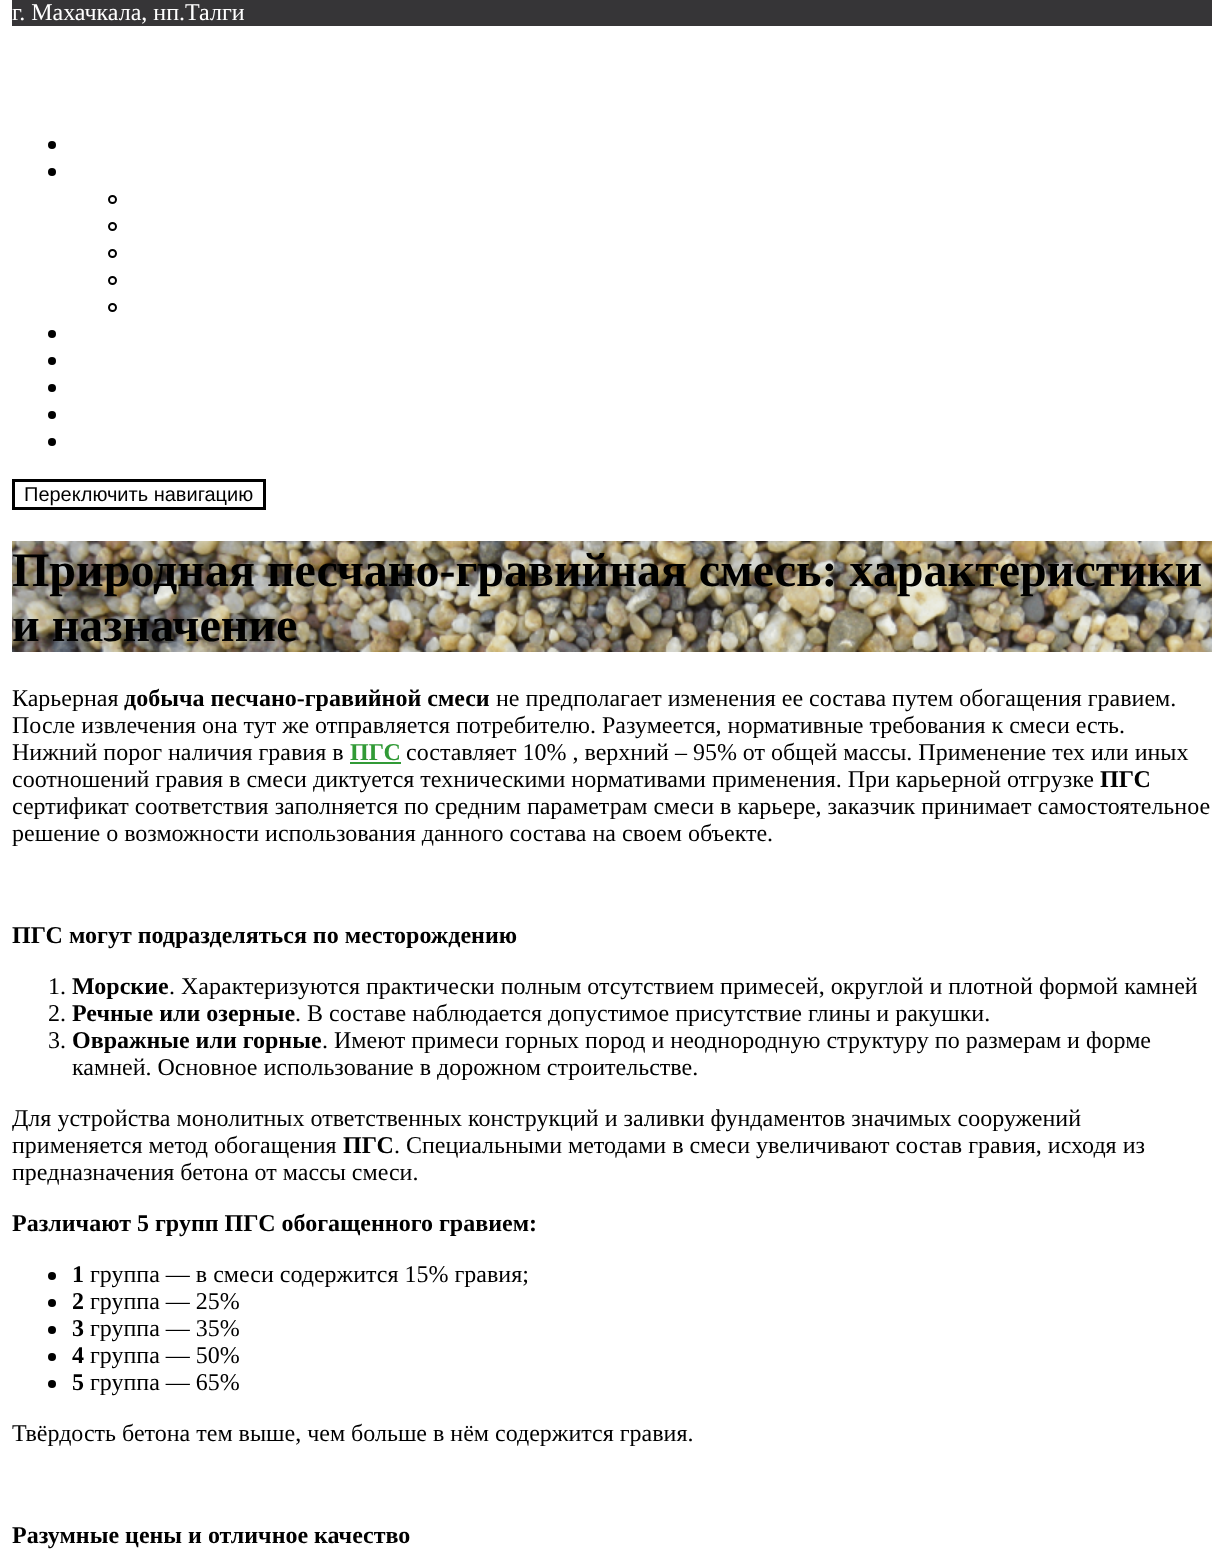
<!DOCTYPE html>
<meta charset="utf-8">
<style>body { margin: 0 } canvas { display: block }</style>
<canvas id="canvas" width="1224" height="1560"></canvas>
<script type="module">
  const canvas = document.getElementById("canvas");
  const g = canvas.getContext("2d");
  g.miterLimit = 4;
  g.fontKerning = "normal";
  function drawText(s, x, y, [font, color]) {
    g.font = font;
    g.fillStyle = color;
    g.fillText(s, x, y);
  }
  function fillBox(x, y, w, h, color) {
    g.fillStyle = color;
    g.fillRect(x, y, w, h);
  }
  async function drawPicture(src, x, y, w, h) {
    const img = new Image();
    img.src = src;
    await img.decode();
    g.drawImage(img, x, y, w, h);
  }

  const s1 = ["24px Liberation Serif", "#FFFFFF"];
  const s2 = ["20px Liberation Sans", "#000000"];
  const s3 = ["bold 48px Liberation Serif", "#000000"];
  const s4 = ["24px Liberation Serif", "#000000"];
  const s5 = ["bold 24px Liberation Serif", "#000000"];
  const s6 = ["bold 24px Liberation Serif", "#319A36"];

  fillBox(0, 0, 1224, 1560, "#FFFFFF");
  fillBox(12, 0, 1200, 26, "#363537");
  drawText("г. Махачкала, нп.Талги", 12, 20, s1);
  g.fillStyle = "#000000";
  g.beginPath();
  g.arc(52, 145, 4, 0, Math.PI * 2);
  g.fill();
  g.beginPath();
  g.arc(52, 172, 4, 0, Math.PI * 2);
  g.fill();
  g.beginPath();
  g.arc(112.5, 199.5, 3.5, 0, Math.PI * 2);
  g.strokeStyle = "#000000";
  g.lineWidth = 2;
  g.stroke();
  g.beginPath();
  g.arc(112.5, 226.5, 3.5, 0, Math.PI * 2);
  g.stroke();
  g.beginPath();
  g.arc(112.5, 253.5, 3.5, 0, Math.PI * 2);
  g.stroke();
  g.beginPath();
  g.arc(112.5, 280.5, 3.5, 0, Math.PI * 2);
  g.stroke();
  g.beginPath();
  g.arc(112.5, 307.5, 3.5, 0, Math.PI * 2);
  g.stroke();
  g.beginPath();
  g.arc(52, 334, 4, 0, Math.PI * 2);
  g.fill();
  g.beginPath();
  g.arc(52, 361, 4, 0, Math.PI * 2);
  g.fill();
  g.beginPath();
  g.arc(52, 388, 4, 0, Math.PI * 2);
  g.fill();
  g.beginPath();
  g.arc(52, 415, 4, 0, Math.PI * 2);
  g.fill();
  g.beginPath();
  g.arc(52, 442, 4, 0, Math.PI * 2);
  g.fill();
  g.lineWidth = 3;
  g.strokeRect(13.5, 480.5, 251, 28);
  drawText("Переключить навигацию", 24, 501, s2);
  await drawPicture("pic1.png", 12, 541, 1200, 111);
  drawText("Природная песчано-гравийная смесь: характеристики", 12, 586, s3);
  drawText("и назначение", 12, 641, s3);
  drawText("Карьерная", 12, 706, s4);
  drawText("добыча песчано-гравийной смеси", 124, 706, s5);
  drawText("не предполагает изменения ее состава путем обогащения гравием.", 496, 706, s4);
  drawText("После извлечения она тут же отправляется потребителю. Разумеется, нормативные требования к смеси есть.", 12, 733, s4);
  drawText("Нижний порог наличия гравия в", 12, 760, s4);
  drawText("ПГС", 350, 760, s6);
  fillBox(350, 762, 51, 2, "#319A36");
  drawText("составляет 10% , верхний – 95% от общей массы. Применение тех или иных", 406, 760, s4);
  drawText("соотношений гравия в смеси диктуется техническими нормативами применения. При карьерной отгрузке", 12, 787, s4);
  drawText("ПГС", 1100, 787, s5);
  drawText("сертификат соответствия заполняется по средним параметрам смеси в карьере, заказчик принимает самостоятельное", 12, 814, s4);
  drawText("решение о возможности использования данного состава на своем объекте.", 12, 841, s4);
  drawText("ПГС могут подразделяться по месторождению", 12, 943, s5);
  drawText("1.", 48, 994, s4);
  drawText("Морские", 72, 994, s5);
  drawText(". Характеризуются практически полным отсутствием примесей, округлой и плотной формой камней", 169, 994, s4);
  drawText("2.", 48, 1021, s4);
  drawText("Речные или озерные", 72, 1021, s5);
  drawText(". В составе наблюдается допустимое присутствие глины и ракушки.", 295, 1021, s4);
  drawText("3.", 48, 1048, s4);
  drawText("Овражные или горные", 72, 1048, s5);
  drawText(". Имеют примеси горных пород и неоднородную структуру по размерам и форме", 322, 1048, s4);
  drawText("камней. Основное использование в дорожном строительстве.", 72, 1075, s4);
  drawText("Для устройства монолитных ответственных конструкций и заливки фундаментов значимых сооружений", 12, 1126, s4);
  drawText("применяется метод обогащения", 12, 1153, s4);
  drawText("ПГС", 343, 1153, s5);
  drawText(". Специальными методами в смеси увеличивают состав гравия, исходя из", 394, 1153, s4);
  drawText("предназначения бетона от массы смеси.", 12, 1180, s4);
  drawText("Различают 5 групп ПГС обогащенного гравием:", 12, 1231, s5);
  g.beginPath();
  g.arc(52, 1276, 4, 0, Math.PI * 2);
  g.fill();
  drawText("1", 72, 1282, s5);
  drawText("группа — в смеси содержится 15% гравия;", 90, 1282, s4);
  g.beginPath();
  g.arc(52, 1303, 4, 0, Math.PI * 2);
  g.fill();
  drawText("2", 72, 1309, s5);
  drawText("группа — 25%", 90, 1309, s4);
  g.beginPath();
  g.arc(52, 1330, 4, 0, Math.PI * 2);
  g.fill();
  drawText("3", 72, 1336, s5);
  drawText("группа — 35%", 90, 1336, s4);
  g.beginPath();
  g.arc(52, 1357, 4, 0, Math.PI * 2);
  g.fill();
  drawText("4", 72, 1363, s5);
  drawText("группа — 50%", 90, 1363, s4);
  g.beginPath();
  g.arc(52, 1384, 4, 0, Math.PI * 2);
  g.fill();
  drawText("5", 72, 1390, s5);
  drawText("группа — 65%", 90, 1390, s4);
  drawText("Твёрдость бетона тем выше, чем больше в нём содержится гравия.", 12, 1441, s4);
  drawText("Разумные цены и отличное качество", 12, 1543, s5);
</script>
